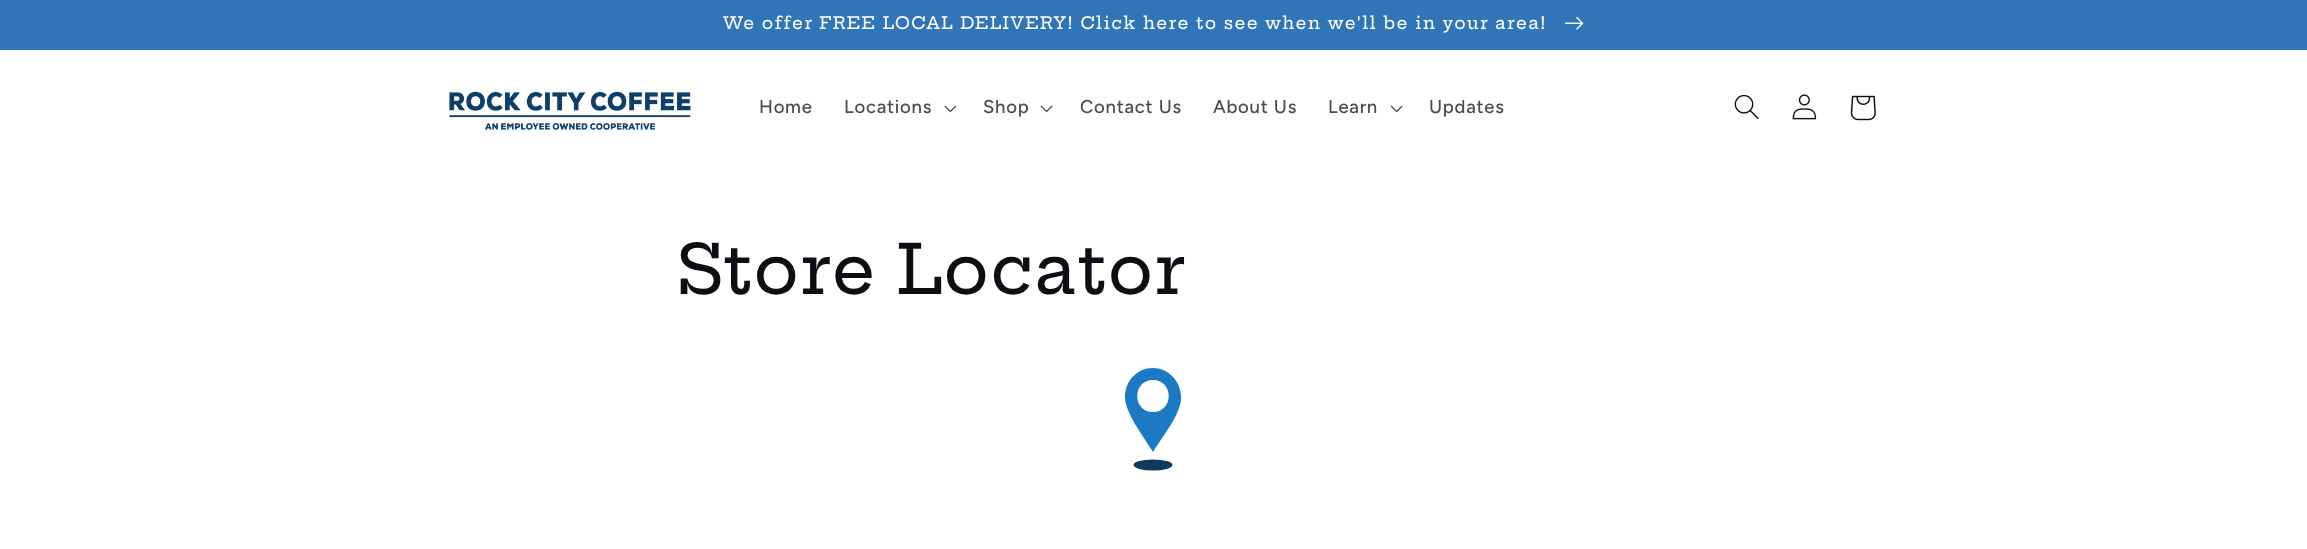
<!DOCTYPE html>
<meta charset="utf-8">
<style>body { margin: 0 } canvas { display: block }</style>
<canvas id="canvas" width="2307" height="549"></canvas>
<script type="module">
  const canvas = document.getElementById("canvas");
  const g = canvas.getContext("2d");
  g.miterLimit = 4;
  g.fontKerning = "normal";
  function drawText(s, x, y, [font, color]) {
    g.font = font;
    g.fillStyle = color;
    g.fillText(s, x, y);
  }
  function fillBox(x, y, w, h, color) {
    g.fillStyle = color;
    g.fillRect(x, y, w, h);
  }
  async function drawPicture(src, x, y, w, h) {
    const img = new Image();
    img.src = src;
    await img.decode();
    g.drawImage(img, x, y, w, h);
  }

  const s1 = ["500 17.05px Hepta Slab", "#FFFFFF"];
  const s2 = ["500 18.5px Figtree", "#4B4A4E"];
  const s3 = ["500 68.25px Hepta Slab", "#0F0D13"];

  fillBox(0, 0, 2307, 549, "#FFFFFF");
  fillBox(0, 49, 2307, 1, "#3578B9");
  fillBox(0, 0, 2307, 49, "#3075B8");
  g.letterSpacing = "1.3px";
  drawText("We offer FREE LOCAL DELIVERY! Click here to see when we'll be in your area!", 723, 29, s1);
  await drawPicture("pic1.png", 1565, 17, 19, 13);
  await drawPicture("pic2.png", 449, 91, 242, 39);
  g.letterSpacing = "0.75px";
  drawText("Home", 759, 113, s2);
  drawText("Locations", 844, 113, s2);
  await drawPicture("pic3.png", 944, 105, 12, 8);
  drawText("Shop", 983, 113, s2);
  await drawPicture("pic4.png", 1040, 105, 13, 8);
  drawText("Contact Us", 1080, 113, s2);
  drawText("About Us", 1213, 113, s2);
  drawText("Learn", 1328, 113, s2);
  await drawPicture("pic4.png", 1390, 105, 13, 8);
  drawText("Updates", 1429, 113, s2);
  await drawPicture("pic5.png", 1734, 94, 25, 26);
  await drawPicture("pic6.png", 1792, 94, 25, 26);
  await drawPicture("pic7.png", 1850, 95, 26, 26);
  drawText("Store Locator", 677, 294, s3);
  g.fillStyle = "#1C79C4";
  g.beginPath();
  g.moveTo(1153, 452);
  g.bezierCurveTo(1144, 437, 1125, 413, 1125, 397);
  g.bezierCurveTo(1125, 381, 1137, 368, 1153, 368);
  g.bezierCurveTo(1168, 368, 1181, 381, 1181, 397);
  g.bezierCurveTo(1182, 413, 1162, 437, 1153, 452);
  g.closePath();
  g.moveTo(1153, 380);
  g.bezierCurveTo(1132, 380, 1132, 412, 1153, 412);
  g.bezierCurveTo(1174, 412, 1174, 380, 1153, 380);
  g.closePath();
  g.fill();
  g.fillStyle = "#0D395C";
  g.beginPath();
  g.ellipse(1153, 465, 19.5, 5.5, 0, 0, Math.PI * 2);
  g.fill();
</script>
